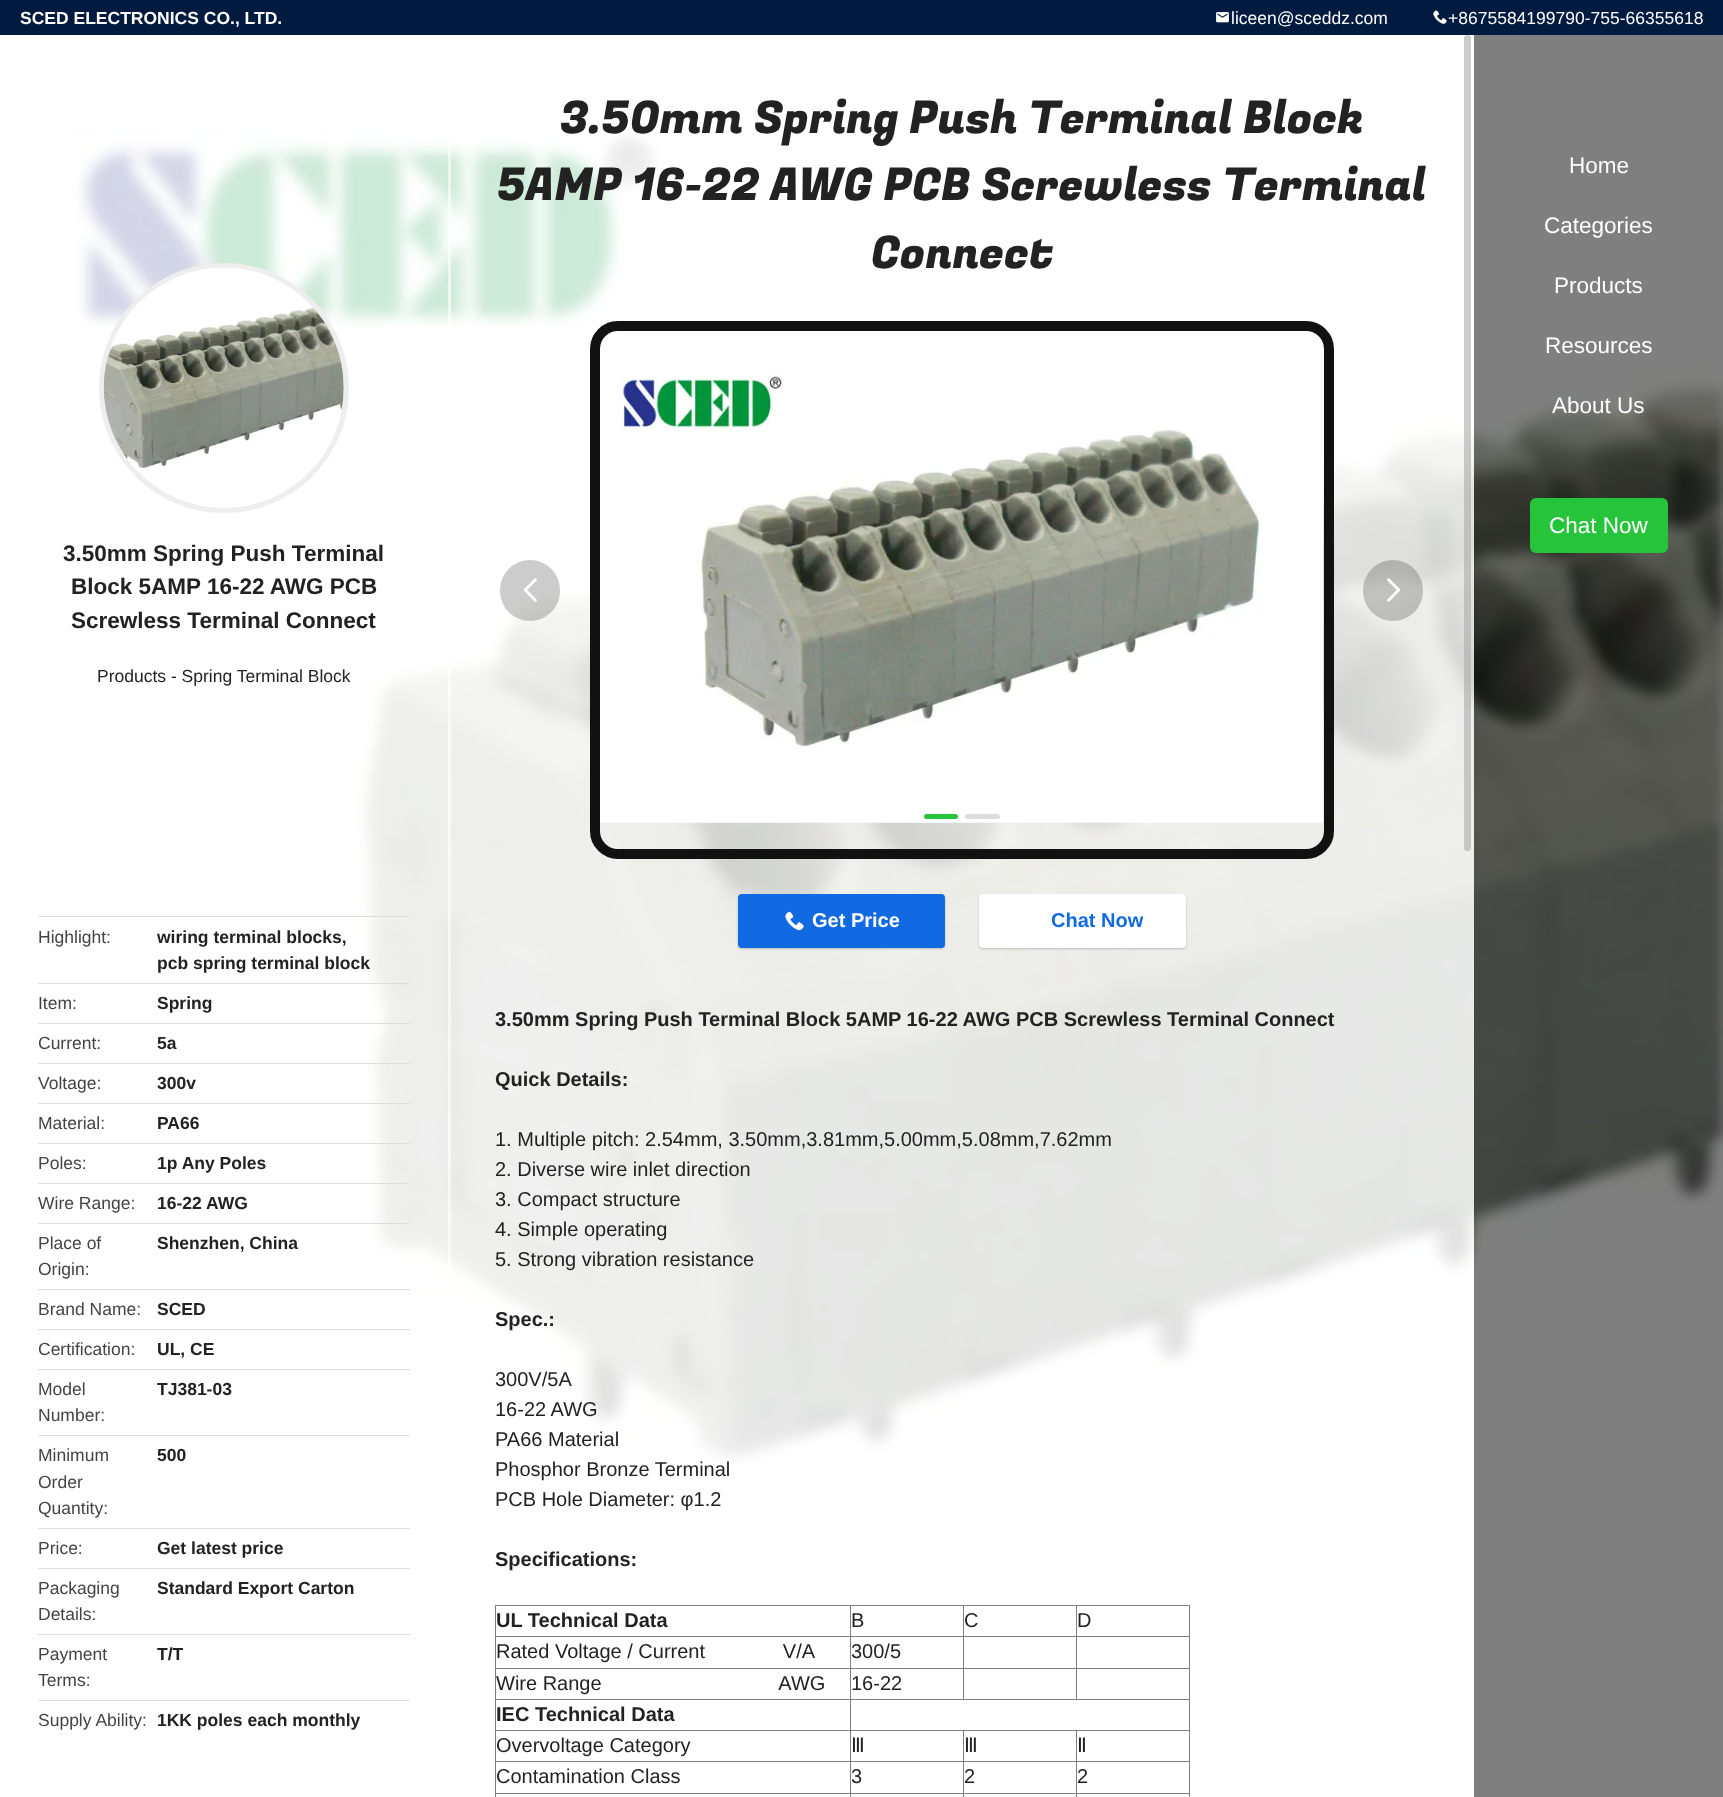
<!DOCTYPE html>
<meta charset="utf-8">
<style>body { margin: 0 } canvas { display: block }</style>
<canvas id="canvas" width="1723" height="1797"></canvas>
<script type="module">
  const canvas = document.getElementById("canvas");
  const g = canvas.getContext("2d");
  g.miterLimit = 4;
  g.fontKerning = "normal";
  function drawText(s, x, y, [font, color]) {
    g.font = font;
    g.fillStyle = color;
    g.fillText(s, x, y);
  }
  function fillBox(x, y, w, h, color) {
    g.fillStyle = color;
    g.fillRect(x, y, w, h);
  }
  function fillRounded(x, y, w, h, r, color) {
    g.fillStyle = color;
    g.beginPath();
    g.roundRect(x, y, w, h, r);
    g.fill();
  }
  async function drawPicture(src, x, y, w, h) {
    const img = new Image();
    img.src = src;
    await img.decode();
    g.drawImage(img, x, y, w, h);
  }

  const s1 = ["bold 17.5px Liberation Sans", "#FFFFFF"];
  const s2 = ["17.5px Liberation Sans", "#FFFFFF"];
  const s3 = ["45px Fugaz One", "#222222"];
  const s4 = ["bold 20px Liberation Sans", "#FFFFFF"];
  const s5 = ["bold 20px Liberation Sans", "#126AE2"];
  const s6 = ["bold 20px Liberation Sans", "#222222"];
  const s7 = ["20px Liberation Sans", "#222222"];
  const s8 = ["20px DejaVu Sans", "#222222"];
  const s9 = ["22.5px Liberation Sans", "#FFFFFF"];
  const s10 = ["bold 22.5px Liberation Sans", "#222222"];
  const s11 = ["17.5px Liberation Sans", "#222222"];
  const s12 = ["17.5px Liberation Sans", "#444444"];
  const s13 = ["bold 17.5px Liberation Sans", "#222222"];

  fillBox(0, 0, 1723, 1797, "#FFFFFF");
  fillBox(0, 0, 1723, 35, "#001B3F");
  drawText("SCED ELECTRONICS CO., LTD.", 20, 24, s1);
  await drawPicture("pic1.png", 1216, 12, 13, 11);
  drawText("liceen@sceddz.com", 1231, 24, s2);
  await drawPicture("pic2.png", 1433, 10, 14, 14);
  drawText("+8675584199790-755-66355618", 1448, 24, s2);
  await drawPicture("pic7.png", 71, 127, 1652, 1341);
  fillBox(71, 135, 379, 1152, "rgba(255, 255, 255, 0.8)");
  fillBox(448, 139, 3, 1144, "rgba(255, 255, 255, 0.6)");
  fillBox(450, 127, 1024, 1341, "rgba(255, 255, 255, 0.8)");
  drawText("3.50mm Spring Push Terminal Block", 560, 133, s3);
  drawText("5AMP 16-22 AWG PCB Screwless Terminal", 497, 200, s3);
  drawText("Connect", 871, 268, s3);
  fillRounded(1464, 35, 7, 816, 3.5, "rgba(170, 170, 170, 0.6)");
  g.beginPath();
  g.roundRect(595, 326, 734, 528, 23);
  g.strokeStyle = "#111111";
  g.lineWidth = 10;
  g.stroke();
  await drawPicture("pic3.png", 600, 375, 723, 448);
  fillRounded(500, 560, 60, 61, 30, "rgba(0, 0, 0, 0.2)");
  await drawPicture("pic4.png", 523, 578, 14, 24);
  fillRounded(1363, 560, 60, 61, 30, "rgba(0, 0, 0, 0.2)");
  await drawPicture("pic5.png", 1387, 578, 14, 24);
  fillRounded(924, 814, 34, 5, 2.5, "#26C43A");
  fillRounded(965, 814, 35, 5, 2.5, "#DDDDDD");
  g.fillStyle = "rgba(0, 0, 0, 0.2)";
  g.filter = "blur(1px)";
  g.beginPath();
  g.roundRect(738, 895, 207, 54, 4);
  g.fill();
  g.filter = "none";
  fillRounded(738, 894, 207, 54, 4, "#126AE2");
  await drawPicture("pic6.png", 785, 911, 19, 20);
  drawText("Get Price", 812, 927, s4);
  g.fillStyle = "rgba(0, 0, 0, 0.2)";
  g.filter = "blur(1px)";
  g.beginPath();
  g.roundRect(979, 895, 207, 54, 4);
  g.fill();
  g.filter = "none";
  fillRounded(979, 894, 207, 54, 4, "#FFFFFF");
  drawText("Chat Now", 1051, 927, s5);
  drawText("3.50mm Spring Push Terminal Block 5AMP 16-22 AWG PCB Screwless Terminal Connect", 495, 1026, s6);
  drawText("Quick Details:", 495, 1086, s6);
  drawText("1. Multiple pitch: 2.54mm, 3.50mm,3.81mm,5.00mm,5.08mm,7.62mm", 495, 1146, s7);
  drawText("2. Diverse wire inlet direction", 495, 1176, s7);
  drawText("3. Compact structure", 495, 1206, s7);
  drawText("4. Simple operating", 495, 1236, s7);
  drawText("5. Strong vibration resistance", 495, 1266, s7);
  drawText("Spec.:", 495, 1326, s6);
  drawText("300V/5A", 495, 1386, s7);
  drawText("16-22 AWG", 495, 1416, s7);
  drawText("PA66 Material", 495, 1446, s7);
  drawText("Phosphor Bronze Terminal", 495, 1476, s7);
  drawText("PCB Hole Diameter: φ1.2", 495, 1506, s7);
  drawText("Specifications:", 495, 1566, s6);
  fillBox(495, 1605, 695, 1, "#808080");
  fillBox(1189, 1605, 1, 192, "#808080");
  fillBox(495, 1605, 1, 192, "#808080");
  drawText("UL Technical Data", 496, 1627, s6);
  fillBox(1076, 1636, 114, 1, "#808080");
  fillBox(1076, 1668, 114, 1, "#808080");
  fillBox(850, 1699, 340, 1, "#808080");
  fillBox(1076, 1668, 1, 32, "#808080");
  fillBox(963, 1668, 115, 1, "#808080");
  fillBox(1076, 1636, 1, 33, "#808080");
  fillBox(963, 1636, 115, 1, "#808080");
  fillBox(963, 1668, 1, 32, "#808080");
  fillBox(850, 1668, 114, 1, "#808080");
  fillBox(963, 1636, 1, 33, "#808080");
  fillBox(850, 1636, 114, 1, "#808080");
  fillBox(1076, 1730, 114, 1, "#808080");
  fillBox(1076, 1761, 114, 1, "#808080");
  fillBox(1076, 1793, 114, 1, "#808080");
  fillBox(1076, 1793, 1, 4, "#808080");
  fillBox(963, 1793, 115, 1, "#808080");
  fillBox(1076, 1761, 1, 33, "#808080");
  fillBox(963, 1761, 115, 1, "#808080");
  fillBox(1076, 1730, 1, 33, "#808080");
  fillBox(963, 1730, 115, 1, "#808080");
  fillBox(963, 1793, 1, 4, "#808080");
  fillBox(850, 1793, 114, 1, "#808080");
  fillBox(963, 1761, 1, 33, "#808080");
  fillBox(850, 1761, 114, 1, "#808080");
  fillBox(963, 1730, 1, 33, "#808080");
  fillBox(850, 1730, 114, 1, "#808080");
  fillBox(850, 1793, 1, 4, "#808080");
  fillBox(495, 1793, 356, 1, "#808080");
  fillBox(850, 1761, 1, 33, "#808080");
  fillBox(495, 1761, 356, 1, "#808080");
  fillBox(850, 1730, 1, 33, "#808080");
  fillBox(495, 1730, 356, 1, "#808080");
  fillBox(850, 1699, 1, 32, "#808080");
  fillBox(495, 1699, 356, 1, "#808080");
  fillBox(850, 1668, 1, 32, "#808080");
  fillBox(495, 1668, 356, 1, "#808080");
  fillBox(850, 1636, 1, 33, "#808080");
  fillBox(495, 1636, 356, 1, "#808080");
  fillBox(850, 1605, 1, 33, "#808080");
  drawText("B", 851, 1627, s7);
  fillBox(963, 1605, 1, 33, "#808080");
  drawText("C", 964, 1627, s7);
  fillBox(1076, 1605, 1, 33, "#808080");
  drawText("D", 1077, 1627, s7);
  drawText("Rated Voltage / Current              V/A", 496, 1658, s7);
  drawText("300/5", 851, 1658, s7);
  drawText("Wire Range                                AWG", 496, 1690, s7);
  drawText("16-22", 851, 1690, s7);
  drawText("IEC Technical Data", 496, 1721, s6);
  drawText("Overvoltage Category", 496, 1752, s7);
  drawText("Ⅲ", 851, 1752, s8);
  drawText("Ⅲ", 964, 1752, s8);
  drawText("Ⅱ", 1077, 1752, s8);
  drawText("Contamination Class", 496, 1783, s7);
  drawText("3", 851, 1783, s7);
  drawText("2", 964, 1783, s7);
  drawText("2", 1077, 1783, s7);
  fillBox(1474, 35, 249, 1762, "rgba(0, 0, 0, 0.5)");
  drawText("Home", 1569, 173, s9);
  drawText("Categories", 1544, 233, s9);
  drawText("Products", 1554, 293, s9);
  drawText("Resources", 1545, 353, s9);
  drawText("About Us", 1552, 413, s9);
  fillRounded(1530, 498, 138, 55, 6, "#26C43A");
  drawText("Chat Now", 1549, 533, s9);
  g.beginPath();
  g.arc(224, 388, 122.5, 0, Math.PI * 2);
  g.strokeStyle = "#EEEEEE";
  g.lineWidth = 5;
  g.stroke();
  await drawPicture("pic8.png", 103, 267, 241, 203);
  drawText("3.50mm Spring Push Terminal", 63, 561, s10);
  drawText("Block 5AMP 16-22 AWG PCB", 71, 594, s10);
  drawText("Screwless Terminal Connect", 71, 628, s10);
  drawText("Products - Spring Terminal Block", 97, 682, s11);
  fillBox(38, 916, 372, 1, "#DDDDDD");
  drawText("Highlight:", 38, 943, s12);
  drawText("wiring terminal blocks,", 157, 943, s13);
  drawText("pcb spring terminal block", 157, 969, s13);
  fillBox(38, 983, 372, 1, "#DDDDDD");
  drawText("Item:", 38, 1009, s12);
  drawText("Spring", 157, 1009, s13);
  fillBox(38, 1023, 372, 1, "#DDDDDD");
  drawText("Current:", 38, 1049, s12);
  drawText("5a", 157, 1049, s13);
  fillBox(38, 1063, 372, 1, "#DDDDDD");
  drawText("Voltage:", 38, 1089, s12);
  drawText("300v", 157, 1089, s13);
  fillBox(38, 1103, 372, 1, "#DDDDDD");
  drawText("Material:", 38, 1129, s12);
  drawText("PA66", 157, 1129, s13);
  fillBox(38, 1143, 372, 1, "#DDDDDD");
  drawText("Poles:", 38, 1169, s12);
  drawText("1p Any Poles", 157, 1169, s13);
  fillBox(38, 1183, 372, 1, "#DDDDDD");
  drawText("Wire Range:", 38, 1209, s12);
  drawText("16-22 AWG", 157, 1209, s13);
  fillBox(38, 1223, 372, 1, "#DDDDDD");
  drawText("Place of", 38, 1249, s12);
  drawText("Origin:", 38, 1275, s12);
  drawText("Shenzhen, China", 157, 1249, s13);
  fillBox(38, 1289, 372, 1, "#DDDDDD");
  drawText("Brand Name:", 38, 1315, s12);
  drawText("SCED", 157, 1315, s13);
  fillBox(38, 1329, 372, 1, "#DDDDDD");
  drawText("Certification:", 38, 1355, s12);
  drawText("UL, CE", 157, 1355, s13);
  fillBox(38, 1369, 372, 1, "#DDDDDD");
  drawText("Model", 38, 1395, s12);
  drawText("Number:", 38, 1421, s12);
  drawText("TJ381-03", 157, 1395, s13);
  fillBox(38, 1435, 372, 1, "#DDDDDD");
  drawText("Minimum", 38, 1461, s12);
  drawText("Order", 38, 1488, s12);
  drawText("Quantity:", 38, 1514, s12);
  drawText("500", 157, 1461, s13);
  fillBox(38, 1528, 372, 1, "#DDDDDD");
  drawText("Price:", 38, 1554, s12);
  drawText("Get latest price", 157, 1554, s13);
  fillBox(38, 1568, 372, 1, "#DDDDDD");
  drawText("Packaging", 38, 1594, s12);
  drawText("Details:", 38, 1620, s12);
  drawText("Standard Export Carton", 157, 1594, s13);
  fillBox(38, 1634, 372, 1, "#DDDDDD");
  drawText("Payment", 38, 1660, s12);
  drawText("Terms:", 38, 1686, s12);
  drawText("T/T", 157, 1660, s13);
  fillBox(38, 1700, 372, 1, "#DDDDDD");
  drawText("Supply Ability:", 38, 1726, s12);
  drawText("1KK poles each monthly", 157, 1726, s13);
</script>
